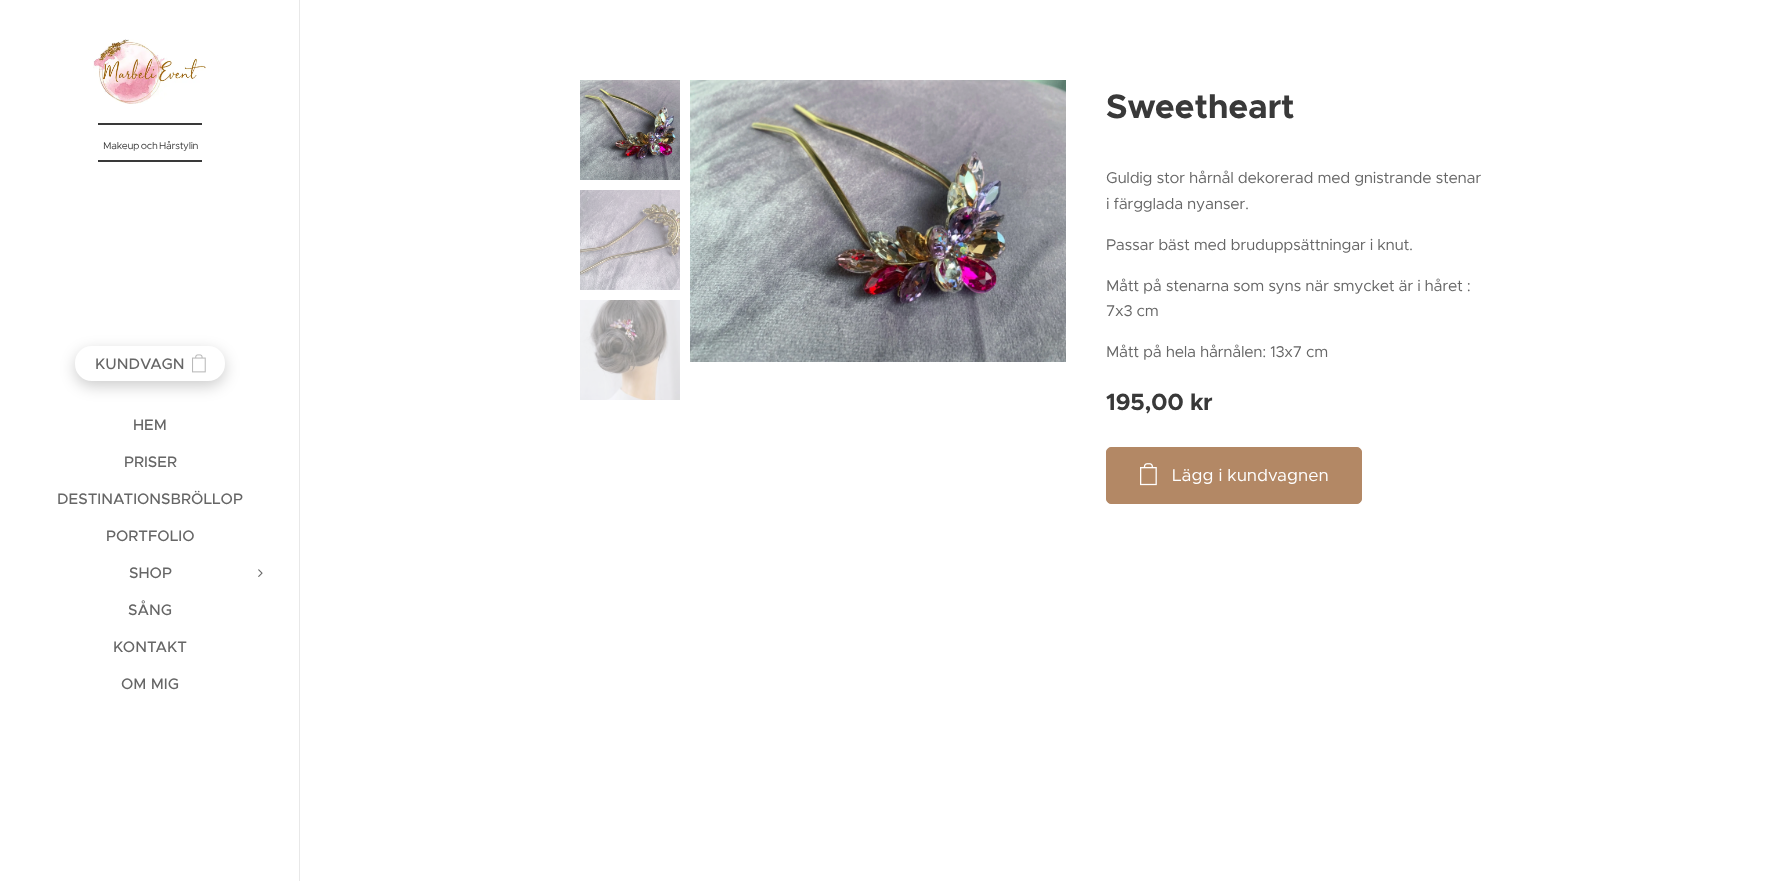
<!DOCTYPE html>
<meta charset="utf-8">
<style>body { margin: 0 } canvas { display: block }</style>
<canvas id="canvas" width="1780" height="881"></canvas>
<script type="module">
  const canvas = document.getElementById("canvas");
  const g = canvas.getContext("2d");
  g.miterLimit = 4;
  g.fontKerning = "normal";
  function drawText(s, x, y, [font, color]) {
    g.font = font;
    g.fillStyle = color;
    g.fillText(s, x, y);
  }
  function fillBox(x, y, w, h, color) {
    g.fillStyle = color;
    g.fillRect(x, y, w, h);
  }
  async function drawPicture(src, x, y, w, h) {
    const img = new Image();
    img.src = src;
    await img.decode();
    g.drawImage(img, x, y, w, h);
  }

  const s1 = ["10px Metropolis", "#393939"];
  const s2 = ["500 15.25px Metropolis", "#666666"];
  const s3 = ["bold 34px Metropolis", "#393939"];
  const s4 = ["15.7px Metropolis", "#666666"];
  const s5 = ["bold 23.5px Metropolis", "#393939"];
  const s6 = ["17.25px Metropolis", "#FFFFFF"];

  fillBox(0, 0, 1780, 881, "#FFFFFF");
  await drawPicture("pic1.png", 93, 39, 113, 65);
  fillBox(98, 123, 104, 2, "#393939");
  fillBox(98, 160, 104, 2, "#393939");
  g.letterSpacing = "-0.3px";
  g.wordSpacing = "-1px";
  drawText("Makeup och Hårstylin", 103, 149, s1);
  g.save();
  g.beginPath();
  g.moveTo(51, 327);
  g.lineTo(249, 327);
  g.lineTo(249, 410);
  g.lineTo(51, 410);
  g.closePath();
  g.moveTo(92, 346);
  g.lineTo(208, 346);
  g.bezierCurveTo(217.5, 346, 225, 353.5, 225, 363);
  g.lineTo(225, 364);
  g.bezierCurveTo(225, 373.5, 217.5, 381, 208, 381);
  g.lineTo(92, 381);
  g.bezierCurveTo(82.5, 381, 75, 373.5, 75, 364);
  g.lineTo(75, 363);
  g.bezierCurveTo(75, 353.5, 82.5, 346, 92, 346);
  g.closePath();
  g.clip("evenodd");
  g.fillStyle = "rgba(0, 0, 0, 0.2)";
  g.filter = "blur(7.5px)";
  g.beginPath();
  g.roundRect(75, 351, 150, 35, 17);
  g.fill();
  g.filter = "none";
  g.restore();
  g.letterSpacing = "0px";
  g.wordSpacing = "0px";
  drawText("KUNDVAGN", 95, 369, s2);
  await drawPicture("pic2.png", 192, 354, 14, 19);
  drawText("HEM", 133, 430, s2);
  drawText("PRISER", 124, 467, s2);
  drawText("DESTINATIONSBRÖLLOP", 57, 504, s2);
  drawText("PORTFOLIO", 106, 541, s2);
  drawText("SHOP", 129, 578, s2);
  await drawPicture("pic3.png", 258, 569, 5, 8);
  drawText("SÅNG", 128, 615, s2);
  drawText("KONTAKT", 113, 652, s2);
  drawText("OM MIG", 121, 689, s2);
  fillBox(299, 0, 1, 881, "#E8E8E8");
  await drawPicture("pic4.png", 580, 80, 100, 100);
  await drawPicture("pic5.png", 580, 190, 100, 100);
  await drawPicture("pic6.png", 580, 300, 100, 100);
  await drawPicture("pic7.png", 690, 80, 376, 282);
  g.letterSpacing = "-0.3px";
  drawText("Sweetheart", 1106, 118, s3);
  drawText("Guldig stor hårnål dekorerad med gnistrande stenar", 1106, 183, s4);
  drawText("i färgglada nyanser.", 1106, 209, s4);
  drawText("Passar bäst med bruduppsättningar i knut.", 1106, 250, s4);
  drawText("Mått på stenarna som syns när smycket är i håret :", 1106, 291, s4);
  drawText("7x3 cm", 1106, 316, s4);
  drawText("Mått på hela hårnålen: 13x7 cm", 1106, 357, s4);
  drawText("195,00 kr", 1106, 410, s5);
  g.fillStyle = "#B38865";
  g.beginPath();
  g.roundRect(1106.5, 447.5, 255, 56, 4.5);
  g.fill();
  g.strokeStyle = "#B38865";
  g.stroke();
  await drawPicture("pic8.png", 1140, 463, 17, 23);
  g.letterSpacing = "0px";
  drawText("Lägg i kundvagnen", 1172, 481, s6);
</script>
